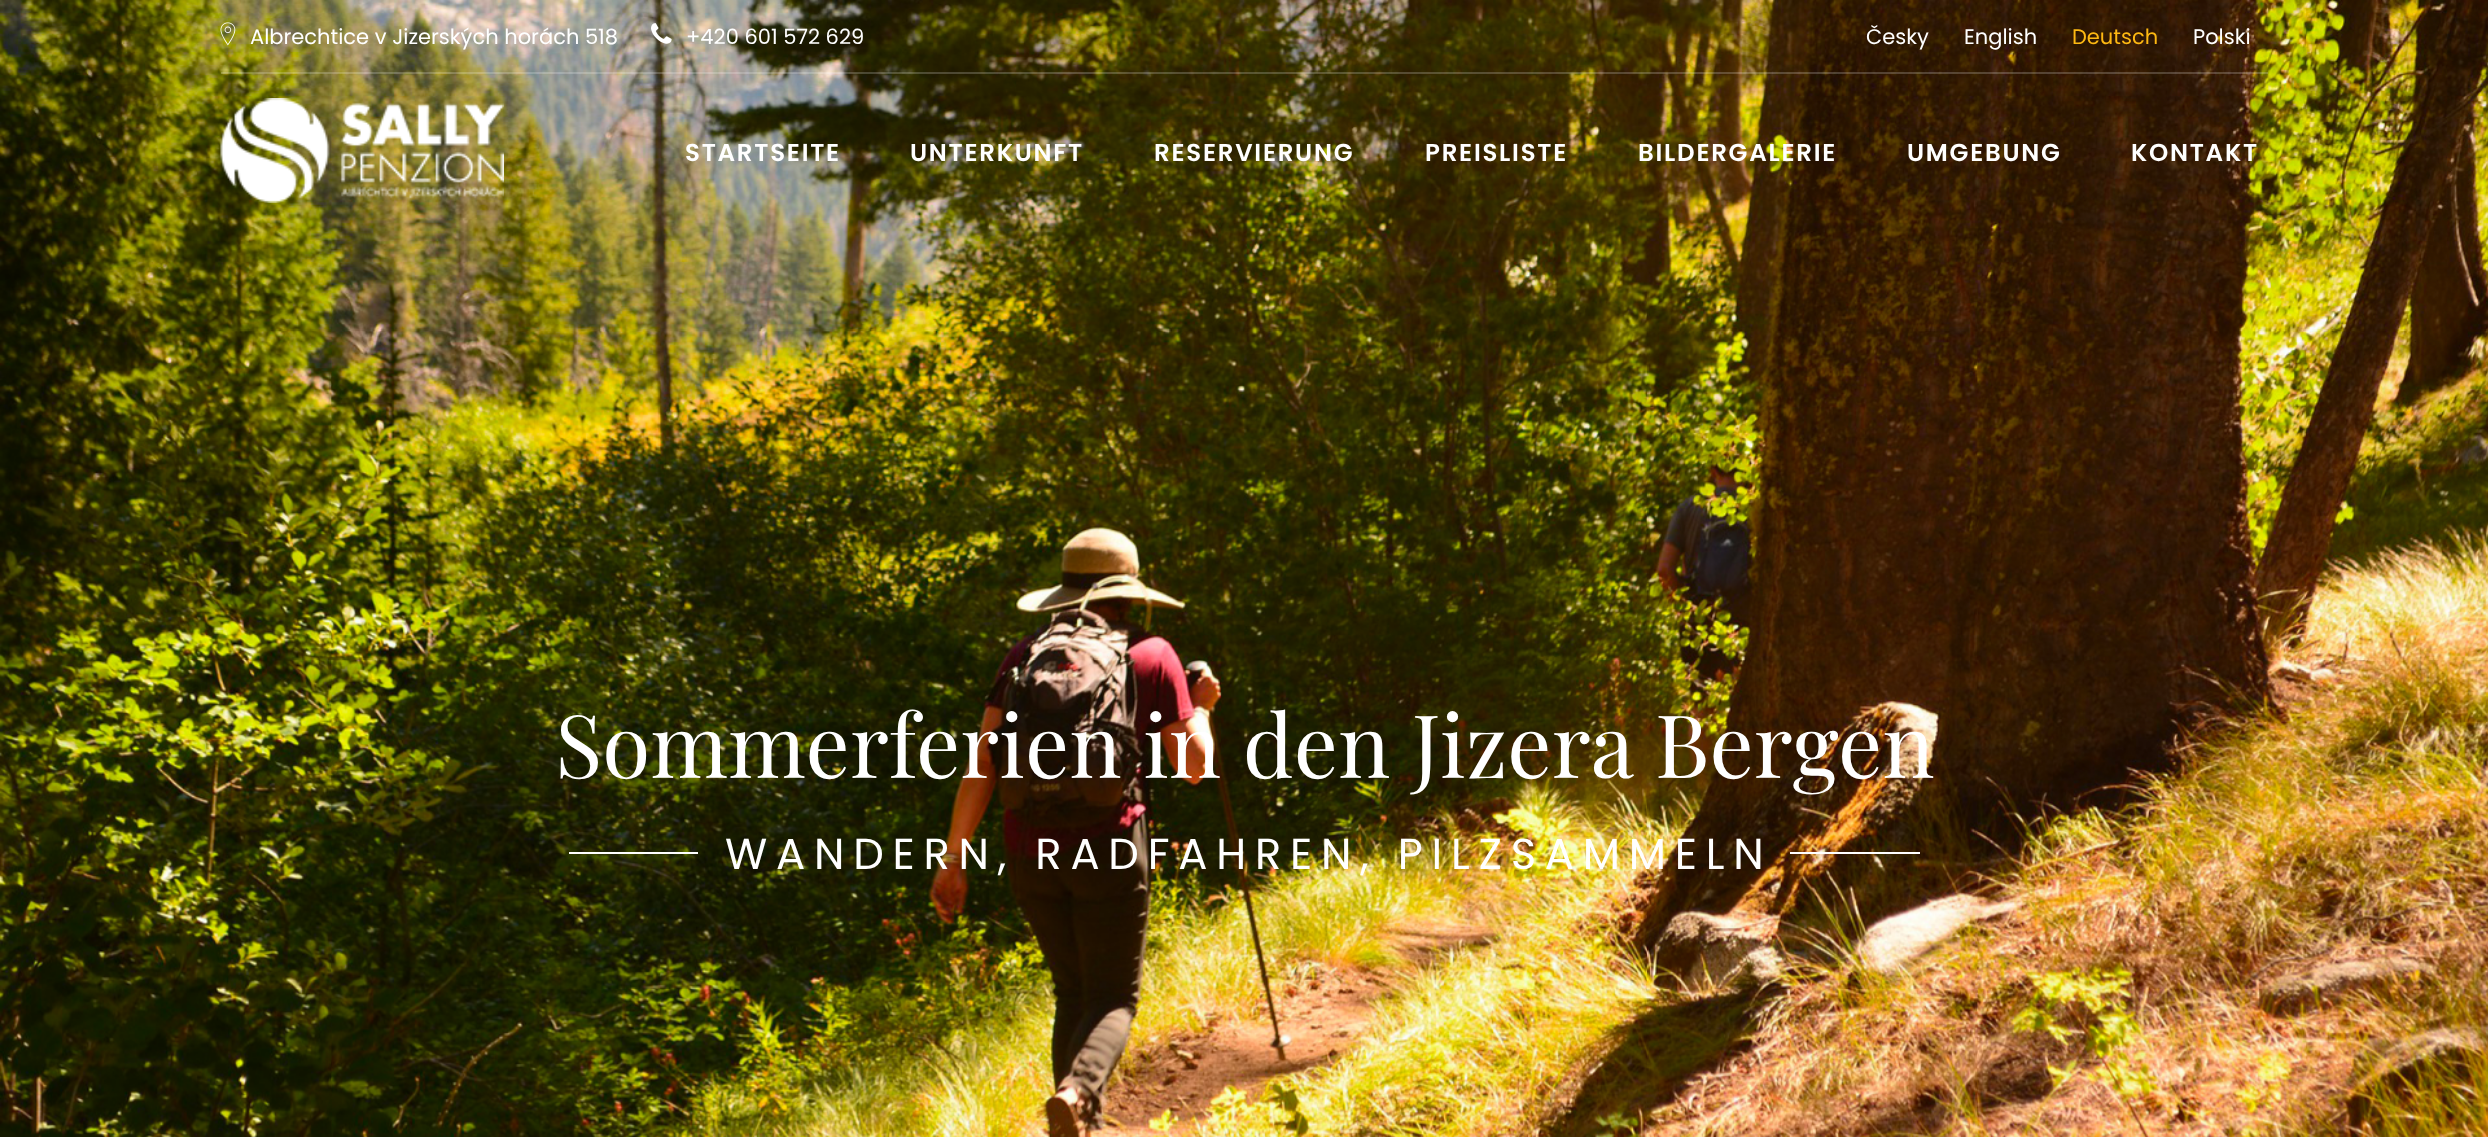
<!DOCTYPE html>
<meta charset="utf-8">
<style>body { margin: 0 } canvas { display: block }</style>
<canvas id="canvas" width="2488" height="1137"></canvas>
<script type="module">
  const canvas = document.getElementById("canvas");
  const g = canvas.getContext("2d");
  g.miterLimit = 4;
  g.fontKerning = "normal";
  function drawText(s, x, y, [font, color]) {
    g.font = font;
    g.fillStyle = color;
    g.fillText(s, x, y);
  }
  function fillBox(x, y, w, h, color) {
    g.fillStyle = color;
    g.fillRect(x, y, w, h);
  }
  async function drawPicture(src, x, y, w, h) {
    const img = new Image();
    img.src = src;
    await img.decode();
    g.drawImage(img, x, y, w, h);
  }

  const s1 = ["21px Poppins", "#FFFFFF"];
  const s2 = ["21px Poppins", "#FDB812"];
  const s3 = ["600 24.5px Poppins", "#FFFFFF"];
  const s4 = ["87.5px Playfair Display", "#FFFFFF"];
  const s5 = ["43.3px Poppins", "#FFFFFF"];

  fillBox(0, 0, 2488, 1137, "#FFFFFF");
  await drawPicture("pic4.png", 0, 0, 2488, 1137);
  fillBox(221, 72, 2047, 2, "rgba(255, 255, 255, 0.2)");
  await drawPicture("pic1.png", 220, 22, 16, 24);
  drawText("Albrechtice v Jizerských horách 518", 250, 44, s1);
  await drawPicture("pic2.png", 651, 23, 21, 21);
  drawText("+420 601 572 629", 686, 44, s1);
  drawText("Česky", 1866, 44, s1);
  drawText("English", 1964, 44, s1);
  drawText("Deutsch", 2072, 44, s2);
  drawText("Polski", 2193, 44, s1);
  await drawPicture("pic3.png", 220, 98, 284, 105);
  g.letterSpacing = "1.75px";
  drawText("STARTSEITE", 685, 161, s3);
  drawText("UNTERKUNFT", 910, 161, s3);
  drawText("RESERVIERUNG", 1154, 161, s3);
  drawText("PREISLISTE", 1425, 161, s3);
  drawText("BILDERGALERIE", 1638, 161, s3);
  drawText("UMGEBUNG", 1907, 161, s3);
  drawText("KONTAKT", 2131, 161, s3);
  g.letterSpacing = "0px";
  drawText("Sommerferien in den Jizera Bergen", 555, 778, s4);
  fillBox(569, 852, 129, 2, "#FFFFFF");
  g.letterSpacing = "8.75px";
  drawText("WANDERN, RADFAHREN, PILZSAMMELN", 725, 869, s5);
  fillBox(1790, 852, 130, 2, "#FFFFFF");
</script>
